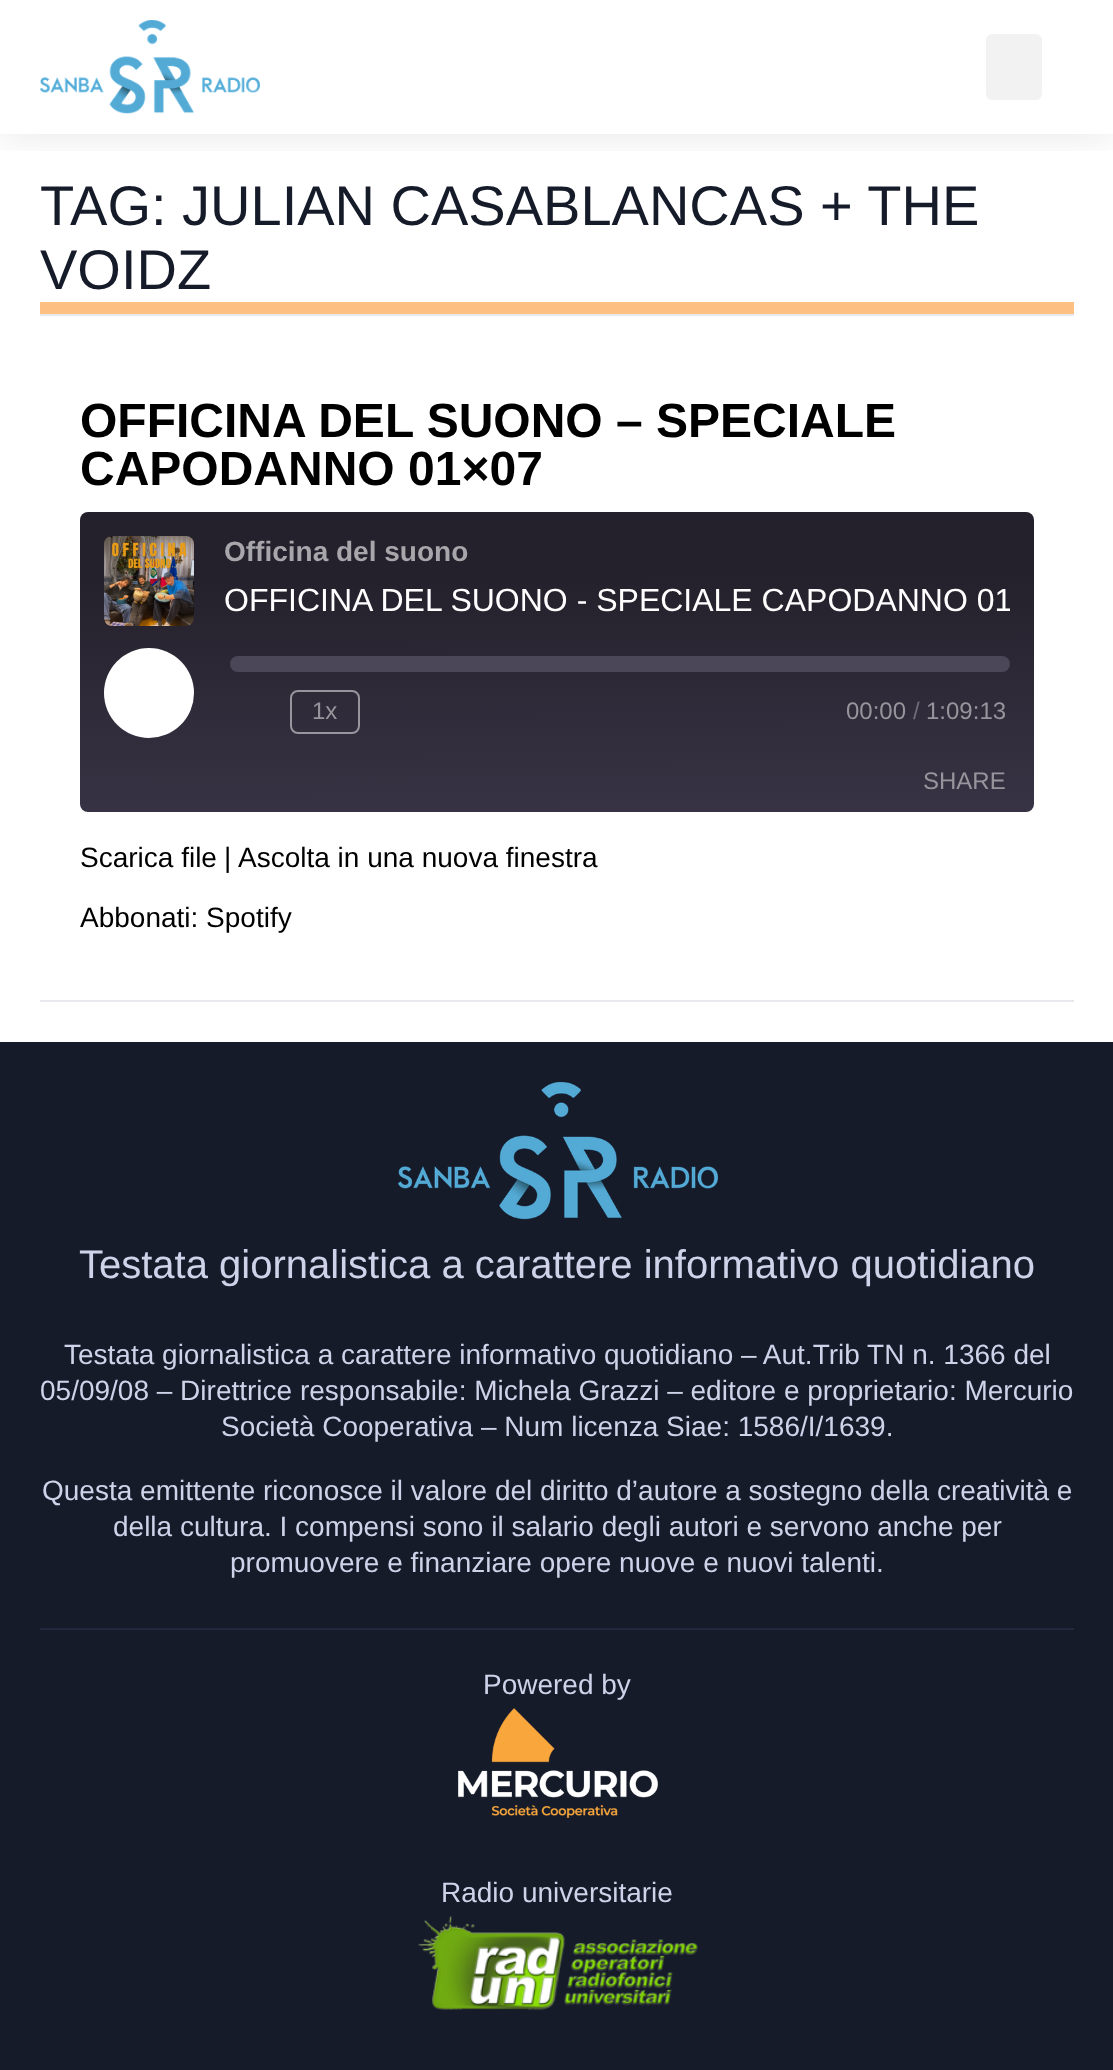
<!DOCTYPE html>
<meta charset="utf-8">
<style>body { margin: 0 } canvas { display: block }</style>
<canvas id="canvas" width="1113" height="2070"></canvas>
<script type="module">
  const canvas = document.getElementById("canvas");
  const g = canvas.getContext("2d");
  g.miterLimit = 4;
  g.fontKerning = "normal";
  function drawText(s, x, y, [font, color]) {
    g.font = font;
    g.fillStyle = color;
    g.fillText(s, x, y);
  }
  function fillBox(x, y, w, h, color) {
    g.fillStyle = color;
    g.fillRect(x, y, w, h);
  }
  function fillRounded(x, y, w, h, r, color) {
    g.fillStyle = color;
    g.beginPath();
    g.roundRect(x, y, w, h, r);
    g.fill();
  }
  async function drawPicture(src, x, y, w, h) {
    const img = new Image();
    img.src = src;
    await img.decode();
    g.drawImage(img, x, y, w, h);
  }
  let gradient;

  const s1 = ["56px Liberation Sans", "#161B2A"];
  const s2 = ["bold 48px Liberation Sans", "#000000"];
  const s3 = ["bold 28px Liberation Sans", "#A7A6AB"];
  const s4 = ["32px Liberation Sans", "#FFFFFF"];
  const s5 = ["24px Liberation Sans", "#97959C"];
  const s6 = ["24px Liberation Sans", "#6E6B75"];
  const s7 = ["28px Liberation Sans", "#000000"];
  const s8 = ["40px Liberation Sans", "#CFD2E8"];
  const s9 = ["28px Liberation Sans", "#CFD2E8"];

  fillBox(0, 0, 1113, 2070, "#FFFFFF");
  g.save();
  g.beginPath();
  g.rect(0, 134, 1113, 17);
  g.clip();
  g.fillStyle = "rgba(0, 0, 0, 0.1)";
  g.filter = "blur(20px)";
  g.beginPath();
  g.rect(0, 0, 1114, 134);
  g.fill();
  g.filter = "none";
  g.restore();
  await drawPicture("pic1.png", 40, 20, 220, 94);
  fillRounded(986, 34, 56, 66, 6, "#F2F2F2");
  fillBox(40, 314, 1034, 2, "#E9E8EF");
  fillBox(40, 302, 1034, 12, "#FEBF83");
  drawText("TAG: JULIAN CASABLANCAS + THE", 40, 225, s1);
  drawText("VOIDZ", 40, 289, s1);
  fillBox(40, 1000, 1034, 2, "#E9E8EF");
  drawText("OFFICINA DEL SUONO – SPECIALE", 80, 437, s2);
  drawText("CAPODANNO 01×07", 80, 485, s2);
  gradient = g.createLinearGradient(558, 815, 556, 509);
  gradient.addColorStop(0.01, "#383344");
  gradient.addColorStop(0.78, "#24212C");
  g.fillStyle = gradient;
  g.beginPath();
  g.roundRect(80, 512, 954, 300, 8);
  g.fill();
  await drawPicture("pic2.png", 104, 536, 90, 90);
  drawText("Officina del suono", 224, 561, s3);
  g.save();
  g.beginPath();
  g.rect(224, 582, 786, 50);
  g.clip();
  drawText("OFFICINA DEL SUONO - SPECIALE CAPODANNO 01", 224, 611, s4);
  g.restore();
  g.fillStyle = "#FFFFFF";
  g.beginPath();
  g.arc(149, 693, 45, 0, Math.PI * 2);
  g.fill();
  fillRounded(230, 656, 780, 16, 8, "#4C4659");
  g.beginPath();
  g.roundRect(291, 691, 68, 42, 7);
  g.strokeStyle = "rgba(255, 255, 255, 0.5)";
  g.lineWidth = 2;
  g.stroke();
  drawText("1x", 312, 719, s5);
  drawText("00:00", 846, 719, s5);
  drawText("/", 913, 719, s6);
  drawText("1:09:13", 926, 719, s5);
  drawText("SHARE", 923, 789, s5);
  drawText("Scarica file", 80, 867, s7);
  drawText("|", 224, 867, s7);
  drawText("Ascolta in una nuova finestra", 238, 867, s7);
  drawText("Abbonati: Spotify", 80, 927, s7);
  fillBox(0, 1042, 1113, 1028, "#161B2A");
  await drawPicture("pic3.png", 398, 1082, 320, 138);
  drawText("Testata giornalistica a carattere informativo quotidiano", 79, 1278, s8);
  drawText("Testata giornalistica a carattere informativo quotidiano – Aut.Trib TN n. 1366 del", 64, 1364, s9);
  drawText("05/09/08 – Direttrice responsabile: Michela Grazzi – editore e proprietario: Mercurio", 40, 1400, s9);
  drawText("Società Cooperativa – Num licenza Siae: 1586/I/1639.", 221, 1436, s9);
  drawText("Questa emittente riconosce il valore del diritto d’autore a sostegno della creatività e", 42, 1500, s9);
  drawText("della cultura. I compensi sono il salario degli autori e servono anche per", 113, 1536, s9);
  drawText("promuovere e finanziare opere nuove e nuovi talenti.", 230, 1572, s9);
  fillBox(40, 1628, 1034, 2, "#22293E");
  drawText("Powered by", 483, 1694, s9);
  await drawPicture("pic4.png", 458, 1708, 200, 110);
  drawText("Radio universitarie", 441, 1902, s9);
  await drawPicture("pic5.png", 418, 1916, 280, 94);
</script>
